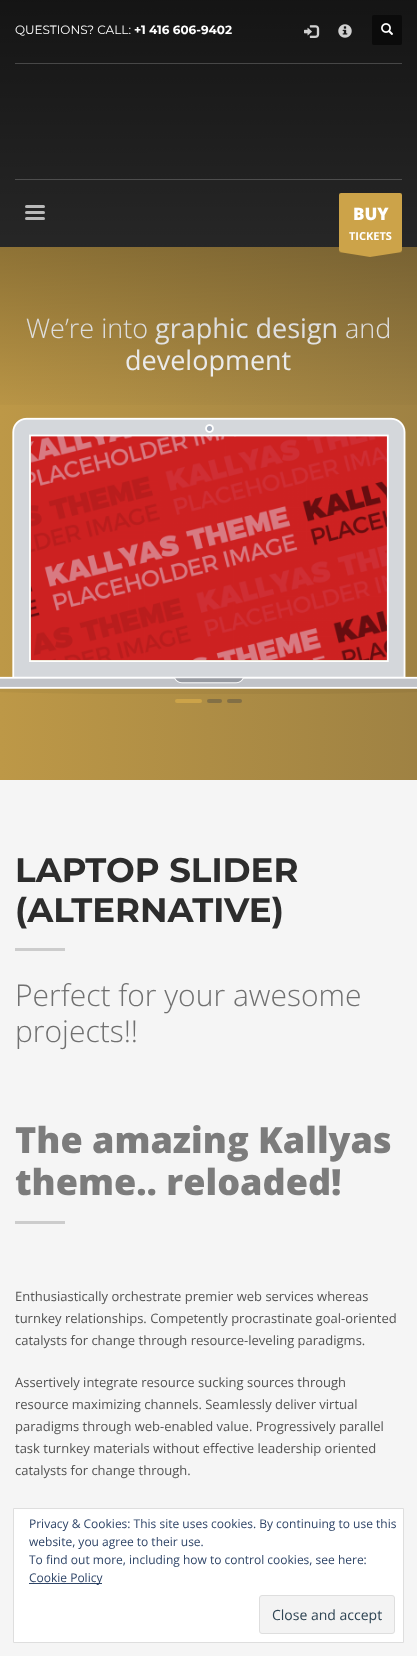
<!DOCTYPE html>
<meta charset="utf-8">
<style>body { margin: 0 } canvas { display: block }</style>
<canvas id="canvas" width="417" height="1656"></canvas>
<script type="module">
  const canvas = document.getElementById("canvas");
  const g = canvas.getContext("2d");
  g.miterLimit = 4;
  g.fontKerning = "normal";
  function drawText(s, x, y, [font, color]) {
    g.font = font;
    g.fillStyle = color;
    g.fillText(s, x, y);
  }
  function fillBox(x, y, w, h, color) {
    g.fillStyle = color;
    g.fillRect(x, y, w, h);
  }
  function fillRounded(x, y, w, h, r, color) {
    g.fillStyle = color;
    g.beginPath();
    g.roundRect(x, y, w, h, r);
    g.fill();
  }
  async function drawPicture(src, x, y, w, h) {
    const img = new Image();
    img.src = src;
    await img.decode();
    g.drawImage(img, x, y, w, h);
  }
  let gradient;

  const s1 = ["300 27px Open Sans", "#FFFFFF"];
  const s2 = ["27px Open Sans", "#FFFFFF"];
  const s3 = ["12px Montserrat", "#FFFFFF"];
  const s4 = ["bold 12px Montserrat", "#FFFFFF"];
  const s5 = ["800 17px Open Sans", "#FFFFFF"];
  const s6 = ["bold 11px Open Sans", "#FFFFFF"];
  const s7 = ["bold 34px Montserrat", "#2D2D2D"];
  const s8 = ["300 30px Open Sans", "#707070"];
  const s9 = ["800 36px Open Sans", "#7C7C7C"];
  const s10 = ["13px Open Sans", "#535353"];
  const s11 = ["12px Open Sans", "#2E4467"];
  const s12 = ["14px Open Sans", "#2E4453"];

  fillBox(0, 0, 417, 1656, "#F5F5F5");
  fillBox(0, 0, 417, 247, "#333333");
  gradient = g.createLinearGradient(0, 514, 417, 514);
  gradient.addColorStop(0, "#BD9847");
  gradient.addColorStop(1, "#9F8243");
  g.fillStyle = gradient;
  g.fillRect(0, 247, 417, 533);
  drawText("We’re into", 26, 338, s1);
  drawText("graphic design", 155, 338, s2);
  drawText("and", 345, 338, s1);
  drawText("development", 125, 370, s2);
  gradient = g.createLinearGradient(208, 0, 209, 420);
  gradient.addColorStop(0, "rgba(0, 0, 0, 0.6)");
  gradient.addColorStop(1, "rgba(0, 0, 0, 0)");
  g.fillStyle = gradient;
  g.fillRect(0, 0, 417, 405);
  drawText("QUESTIONS? CALL:", 15, 34, s3);
  drawText("+1 416 606-9402", 134, 34, s4);
  await drawPicture("pic1.png", 304, 25, 16, 13);
  await drawPicture("pic2.png", 338, 24, 14, 14);
  fillRounded(372, 15, 30, 30, 2, "#0B0B0B");
  await drawPicture("pic3.png", 381, 23, 12, 12);
  fillBox(15, 63, 387, 1, "#474747");
  fillBox(15, 179, 387, 1, "#4E4E4E");
  fillRounded(25, 205, 20, 3, 1.5, "#B9B9B9");
  fillRounded(25, 211, 20, 3, 1.5, "#B9B9B9");
  fillRounded(25, 217, 20, 3, 1.5, "#B9B9B9");
  fillRounded(339, 193, 63, 59, 2, "#CCA349");
  drawText("BUY", 353, 220, s5);
  drawText("TICKETS", 349, 240, s6);
  g.fillStyle = "#CCA349";
  g.beginPath();
  g.moveTo(402, 252);
  g.lineTo(370, 257);
  g.lineTo(339, 252);
  g.closePath();
  g.fill("evenodd");
  await drawPicture("pic5.png", 31, 436, 356, 224);
  await drawPicture("pic4.png", 0, 417, 417, 277);
  fillRounded(175, 699, 27, 4, 2, "#CCA349");
  fillRounded(207, 699, 15, 4, 2, "#837045");
  fillRounded(227, 699, 15, 4, 2, "#826F45");
  drawText("LAPTOP SLIDER", 15, 882, s7);
  drawText("(ALTERNATIVE)", 15, 922, s7);
  fillBox(15, 948, 50, 3, "#CCCCCC");
  drawText("Perfect for your awesome", 15, 1006, s8);
  drawText("projects!!", 15, 1042, s8);
  drawText("The amazing Kallyas", 15, 1153, s9);
  drawText("theme.. reloaded!", 15, 1195, s9);
  fillBox(15, 1221, 50, 3, "#CCCCCC");
  drawText("Enthusiastically orchestrate premier web services whereas", 15, 1301, s10);
  drawText("turnkey relationships. Competently procrastinate goal-oriented", 15, 1323, s10);
  drawText("catalysts for change through resource-leveling paradigms.", 15, 1345, s10);
  drawText("Assertively integrate resource sucking sources through", 15, 1387, s10);
  drawText("resource maximizing channels. Seamlessly deliver virtual", 15, 1409, s10);
  drawText("paradigms through web-enabled value. Progressively parallel", 15, 1431, s10);
  drawText("task turnkey materials without effective leadership oriented", 15, 1453, s10);
  drawText("catalysts for change through.", 15, 1475, s10);
  g.fillStyle = "#FFFFFF";
  g.beginPath();
  g.rect(13.5, 1508.5, 390, 134);
  g.fill();
  g.strokeStyle = "#DEDEDE";
  g.stroke();
  drawText("Privacy & Cookies: This site uses cookies. By continuing to use this", 29, 1528, s11);
  drawText("website, you agree to their use.", 29, 1546, s11);
  drawText("To find out more, including how to control cookies, see here:", 29, 1564, s11);
  fillBox(29, 1583, 73, 1, "#2E4467");
  drawText("Cookie Policy", 29, 1582, s11);
  g.fillStyle = "#F3F3F3";
  g.beginPath();
  g.roundRect(259.5, 1595.5, 135, 38, 2.5);
  g.fill();
  g.stroke();
  drawText("Close and accept", 272, 1620, s12);
</script>
